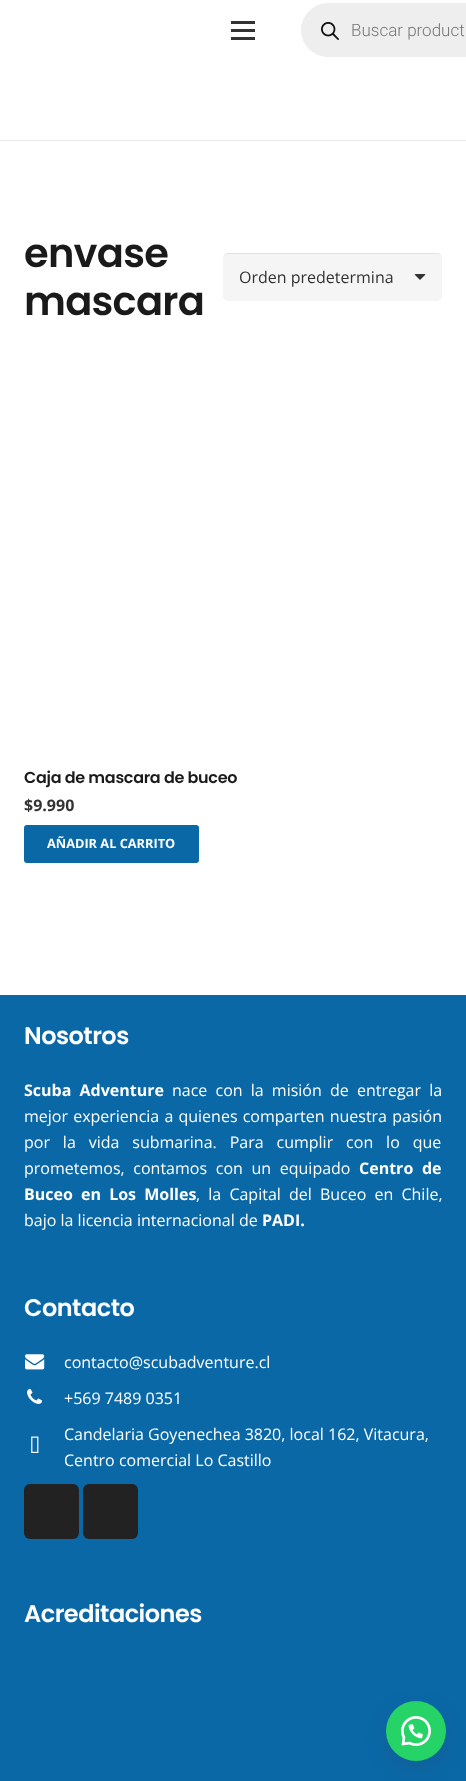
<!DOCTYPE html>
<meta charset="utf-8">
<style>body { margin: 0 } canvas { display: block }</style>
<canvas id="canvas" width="466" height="1781"></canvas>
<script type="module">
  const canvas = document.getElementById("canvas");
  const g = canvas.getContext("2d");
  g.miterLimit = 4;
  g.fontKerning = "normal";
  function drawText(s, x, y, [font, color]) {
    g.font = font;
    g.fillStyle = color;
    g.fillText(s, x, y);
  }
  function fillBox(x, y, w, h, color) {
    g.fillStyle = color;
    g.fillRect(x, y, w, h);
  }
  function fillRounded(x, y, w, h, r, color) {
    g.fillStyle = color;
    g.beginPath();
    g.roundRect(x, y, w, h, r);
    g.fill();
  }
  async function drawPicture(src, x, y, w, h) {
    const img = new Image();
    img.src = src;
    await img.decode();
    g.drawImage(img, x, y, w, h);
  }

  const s1 = ["300 17px Roboto", "#777777"];
  const s2 = ["600 40px Poppins", "#1A1A1A"];
  const s3 = ["16px Open Sans", "#333333"];
  const s4 = ["600 16px Poppins", "#1A1A1A"];
  const s5 = ["bold 16px Open Sans", "#333333"];
  const s6 = ["bold 12.75px Open Sans", "#FFFFFF"];
  const s7 = ["600 24px Poppins", "#FFFFFF"];
  const s8 = ["bold 16px Open Sans", "#FFFFFF"];
  const s9 = ["16px Open Sans", "#FFFFFF"];

  fillBox(0, 0, 466, 1781, "#FFFFFF");
  fillBox(231, 29, 24, 3, "#333333");
  fillBox(231, 21, 24, 3, "#333333");
  fillBox(231, 37, 24, 3, "#333333");
  fillRounded(301, 3, 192, 54, 27, "#EEEEEE");
  await drawPicture("pic1.png", 321, 22, 18, 18);
  drawText("Buscar product", 351, 36, s1);
  fillBox(0, 140, 466, 1, "#EBEBEB");
  g.letterSpacing = "-0.75px";
  drawText("envase", 24, 267, s2);
  drawText("mascara", 24, 315, s2);
  fillRounded(223, 253, 219, 48, 5, "#F5F5F5");
  g.fillStyle = "rgba(0, 0, 0, 0.08)";
  g.beginPath();
  g.moveTo(228, 254);
  g.lineTo(437, 254);
  g.bezierCurveTo(440, 254, 442, 256, 442, 259);
  g.bezierCurveTo(442, 256, 440, 253, 437, 253);
  g.lineTo(227, 253);
  g.bezierCurveTo(224, 254, 223, 256, 223, 259);
  g.bezierCurveTo(223, 256, 225, 254, 228, 254);
  g.closePath();
  g.fill();
  g.letterSpacing = "0px";
  drawText("Orden predetermina", 239, 283, s3);
  g.beginPath();
  g.moveTo(416, 274);
  g.lineTo(414.5, 274.5);
  g.lineTo(420, 280);
  g.lineTo(425.5, 274.5);
  g.bezierCurveTo(425, 274, 424, 274, 422.5, 274);
  g.closePath();
  g.fill();
  g.letterSpacing = "-0.3px";
  drawText("Caja de mascara de buceo", 24, 783, s4);
  g.letterSpacing = "0px";
  drawText("$9.990", 24, 811, s5);
  fillRounded(24, 825, 175, 38, 3, "#0A68A7");
  drawText("AÑADIR AL CARRITO", 47, 848, s6);
  fillBox(0, 995, 466, 786, "#0A68A7");
  g.letterSpacing = "-0.5px";
  drawText("Nosotros", 24, 1044, s7);
  g.letterSpacing = "0px";
  g.wordSpacing = "4px";
  drawText("Scuba Adventure", 24, 1096, s8);
  drawText("nace con la misión de entregar la", 172, 1096, s9);
  g.wordSpacing = "1px";
  drawText("mejor experiencia a quienes comparten nuestra pasión", 24, 1122, s9);
  g.wordSpacing = "8.75px";
  drawText("por la vida submarina. Para cumplir con lo que", 24, 1148, s9);
  g.wordSpacing = "4.5px";
  drawText("prometemos, contamos con un equipado", 24, 1174, s9);
  drawText("Centro de", 359, 1174, s8);
  g.wordSpacing = "4px";
  drawText("Buceo en Los Molles", 24, 1200, s8);
  drawText(", la Capital del Buceo en Chile,", 196, 1200, s9);
  g.wordSpacing = "0px";
  drawText("bajo la licencia internacional de", 24, 1226, s9);
  drawText("PADI.", 262, 1226, s8);
  g.letterSpacing = "-0.5px";
  drawText("Contacto", 24, 1316, s7);
  await drawPicture("pic2.png", 25, 1354, 20, 16);
  g.letterSpacing = "0px";
  drawText("contacto@scubadventure.cl", 64, 1368, s9);
  await drawPicture("pic3.png", 27, 1388, 16, 16);
  drawText("+569 7489 0351", 64, 1404, s9);
  await drawPicture("pic4.png", 31, 1436, 8, 17);
  drawText("Candelaria Goyenechea 3820, local 162, Vitacura,", 64, 1440, s9);
  drawText("Centro comercial Lo Castillo", 64, 1466, s9);
  fillRounded(24, 1484, 55, 55, 6, "#222222");
  fillRounded(83, 1484, 55, 55, 6, "#222222");
  g.letterSpacing = "-0.5px";
  drawText("Acreditaciones", 24, 1622, s7);
  g.fillStyle = "rgba(45, 62, 79, 0.3)";
  g.filter = "blur(12.5px)";
  g.beginPath();
  g.roundRect(391, 1714, 50, 50, 25);
  g.fill();
  g.filter = "none";
  g.fillStyle = "#25D366";
  g.beginPath();
  g.arc(416, 1731, 30, 0, Math.PI * 2);
  g.fill();
  await drawPicture("pic5.png", 401, 1716, 30, 30);
</script>
